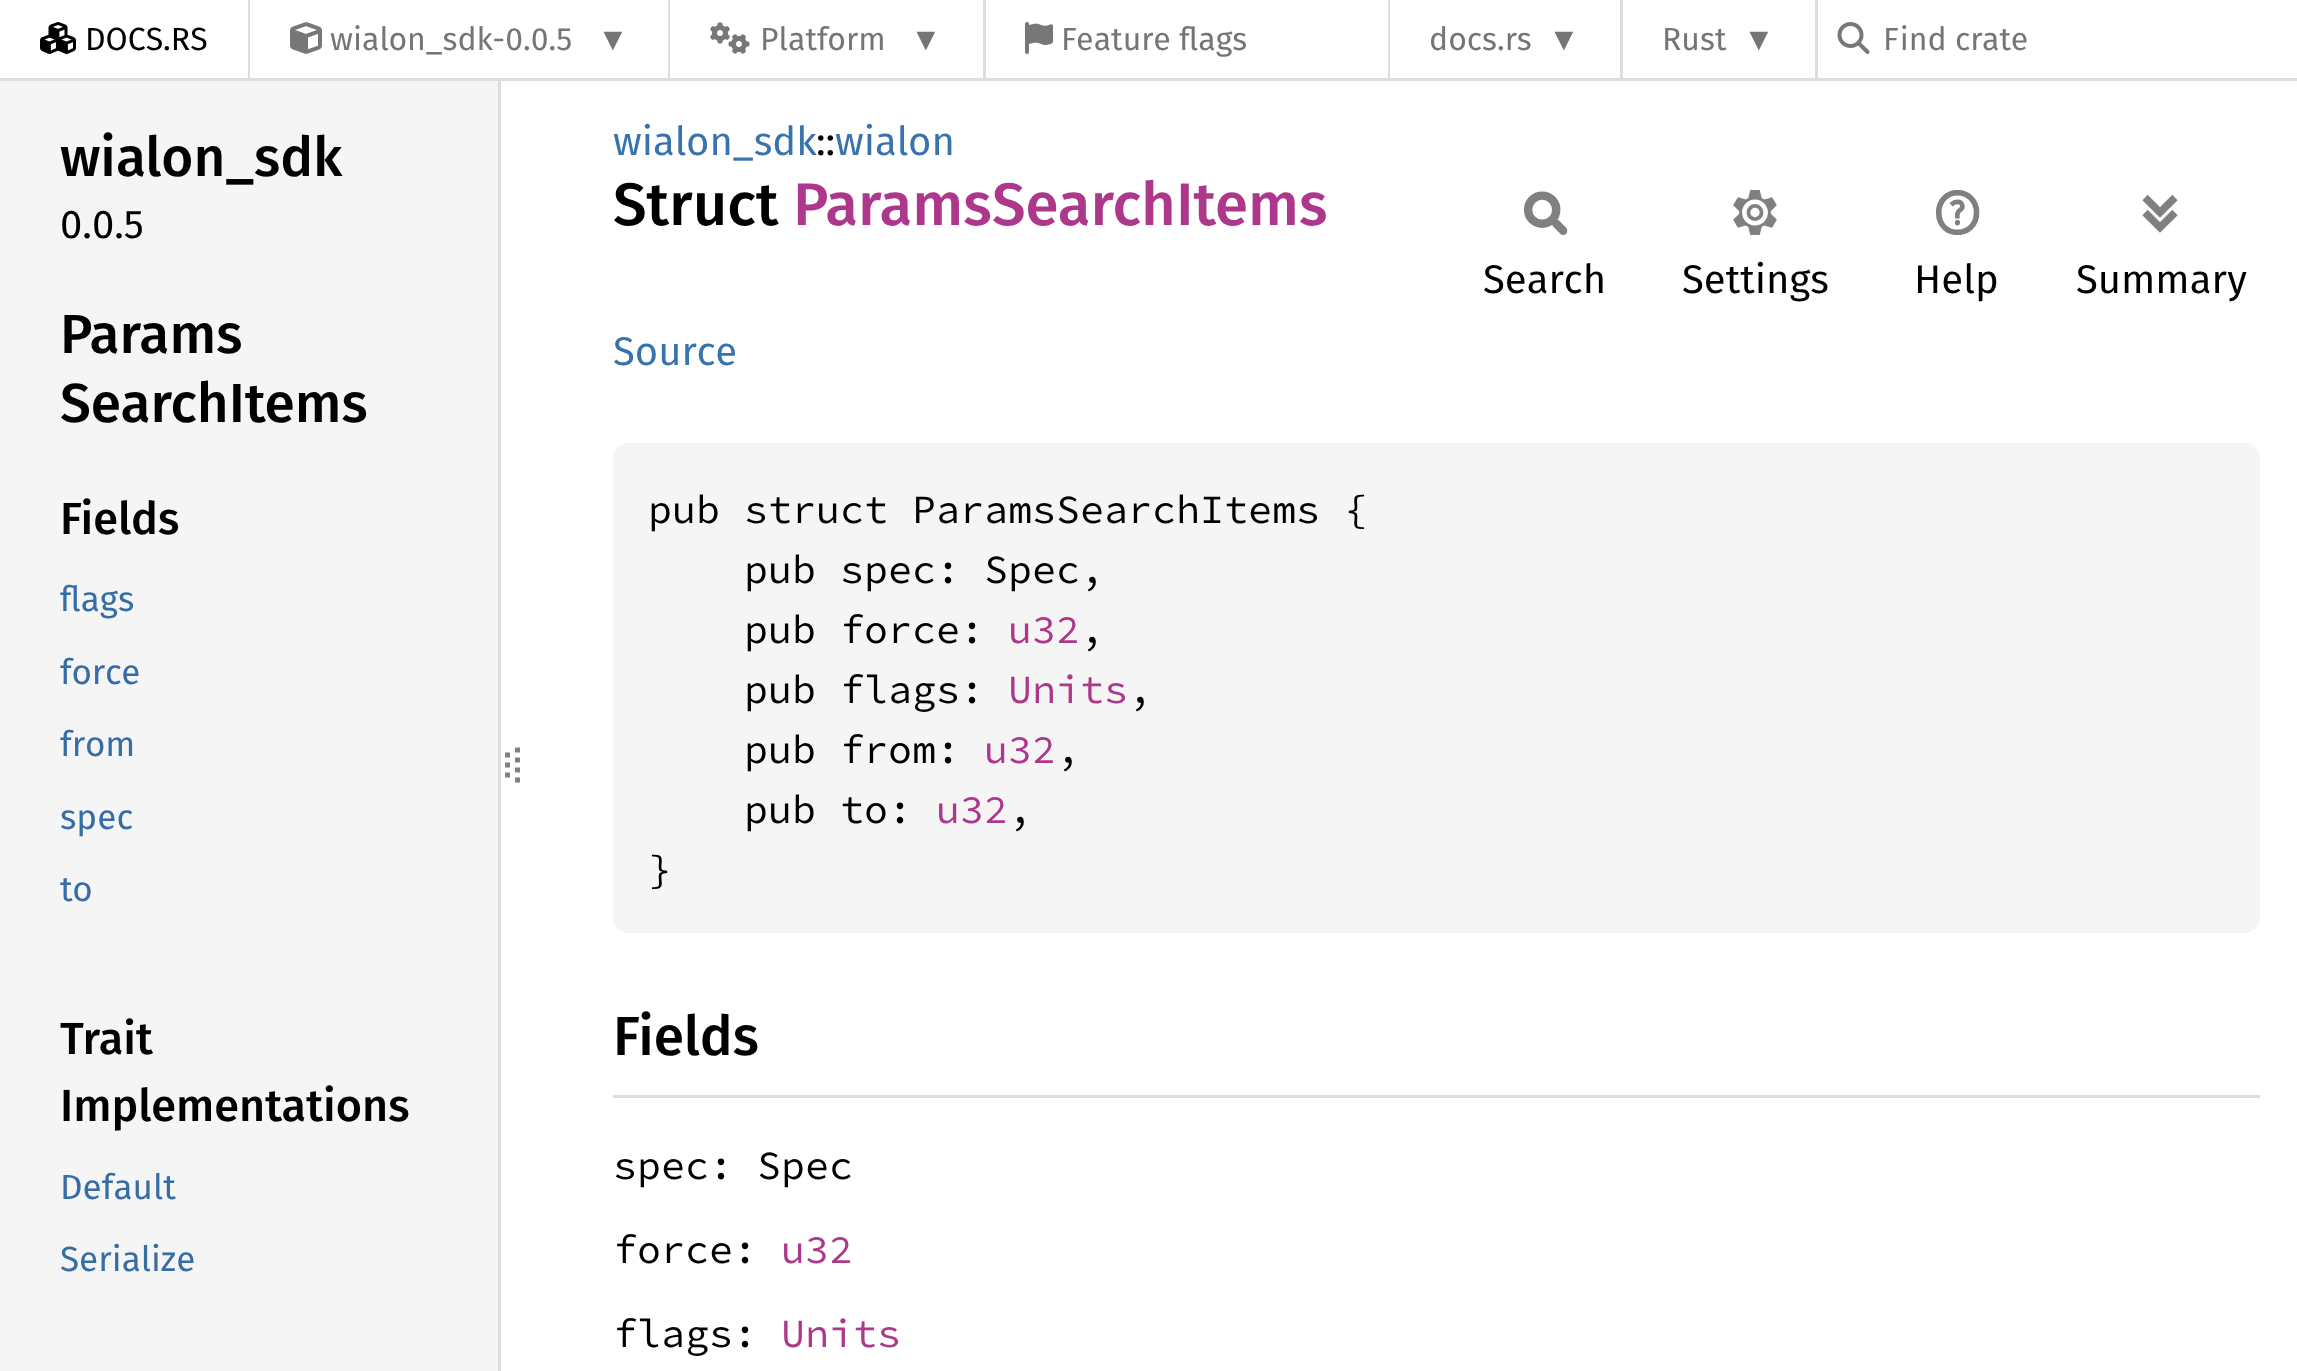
<!DOCTYPE html>
<meta charset="utf-8">
<style>body { margin: 0 } canvas { display: block }</style>
<canvas id="canvas" width="2297" height="1371"></canvas>
<script type="module">
  const canvas = document.getElementById("canvas");
  const g = canvas.getContext("2d");
  g.miterLimit = 4;
  g.fontKerning = "normal";
  function drawText(s, x, y, [font, color]) {
    g.font = font;
    g.fillStyle = color;
    g.fillText(s, x, y);
  }
  function fillBox(x, y, w, h, color) {
    g.fillStyle = color;
    g.fillRect(x, y, w, h);
  }
  function fillRounded(x, y, w, h, r, color) {
    g.fillStyle = color;
    g.beginPath();
    g.roundRect(x, y, w, h, r);
    g.fill();
  }
  async function drawPicture(src, x, y, w, h) {
    const img = new Image();
    img.src = src;
    await img.decode();
    g.drawImage(img, x, y, w, h);
  }

  const s1 = ["32px Fira Sans", "#000000"];
  const s2 = ["32px Fira Sans", "#757575"];
  const s3 = ["32px Liberation Sans", "#757575"];
  const s4 = ["500 55px Fira Sans", "#000000"];
  const s5 = ["40px Fira Sans", "#000000"];
  const s6 = ["500 45px Fira Sans", "#000000"];
  const s7 = ["35px Fira Sans", "#356DA4"];
  const s8 = ["40px Fira Sans", "#3873AD"];
  const s9 = ["500 60px Fira Sans", "#000000"];
  const s10 = ["500 60px Fira Sans", "#AD378A"];
  const s11 = ["40px Source Code Pro", "#000000"];
  const s12 = ["40px Source Code Pro", "#AD378A"];

  fillBox(0, 0, 2297, 1371, "#FFFFFF");
  fillBox(498, 80, 3, 1291, "#DDDDDD");
  fillBox(0, 78, 2297, 3, "#DDDDDD");
  await drawPicture("pic1.png", 40, 22, 36, 32);
  drawText("DOCS.RS", 85, 50, s1);
  fillBox(248, 0, 2, 78, "#DDDDDD");
  await drawPicture("pic2.png", 290, 22, 32, 32);
  drawText("wialon_sdk-0.0.5", 330, 50, s2);
  drawText("▼", 597, 50, s3);
  fillBox(668, 0, 2, 78, "#DDDDDD");
  await drawPicture("pic3.png", 710, 22, 40, 32);
  drawText("Platform", 760, 50, s2);
  drawText("▼", 910, 50, s3);
  fillBox(983, 0, 3, 78, "#DDDDDD");
  await drawPicture("pic4.png", 1025, 22, 28, 32);
  drawText("Feature flags", 1061, 50, s2);
  fillBox(1388, 0, 2, 78, "#DDDDDD");
  drawText("docs.rs", 1429, 50, s2);
  drawText("▼", 1548, 50, s3);
  fillBox(1620, 0, 3, 78, "#DDDDDD");
  drawText("Rust", 1662, 50, s2);
  drawText("▼", 1743, 50, s3);
  fillBox(1815, 0, 3, 78, "#DDDDDD");
  await drawPicture("pic5.png", 1837, 22, 33, 32);
  drawText("Find crate", 1883, 50, s2);
  fillBox(0, 81, 498, 1290, "#F5F5F5");
  drawText("wialon_sdk", 60, 176, s4);
  drawText("0.0.5", 60, 238, s5);
  drawText("Params", 60, 353, s4);
  drawText("SearchItems", 60, 422, s4);
  drawText("Fields", 60, 534, s6);
  drawText("flags", 60, 611, s7);
  drawText("force", 60, 684, s7);
  drawText("from", 60, 756, s7);
  drawText("spec", 60, 829, s7);
  drawText("to", 60, 901, s7);
  drawText("Trait", 60, 1054, s6);
  drawText("Implementations", 60, 1121, s6);
  drawText("Default", 60, 1199, s7);
  drawText("Serialize", 60, 1271, s7);
  g.beginPath();
  g.moveTo(507.5, 752.5);
  g.lineTo(507.5, 757.5);
  g.moveTo(507.5, 762.5);
  g.lineTo(507.5, 767.5);
  g.moveTo(507.5, 772.5);
  g.lineTo(507.5, 777.5);
  g.strokeStyle = "#808080";
  g.lineWidth = 5;
  g.stroke();
  g.beginPath();
  g.moveTo(517.5, 747.5);
  g.lineTo(517.5, 787.5);
  g.setLineDash([5, 5]);
  g.stroke();
  drawText("wialon_sdk", 613, 155, s8);
  drawText("::", 816, 155, s5);
  drawText("wialon", 835, 155, s8);
  drawText("Struct", 613, 225, s9);
  drawText("ParamsSearchItems", 793, 225, s10);
  await drawPicture("pic6.png", 1523, 191, 45, 44);
  drawText("Search", 1483, 293, s5);
  await drawPicture("pic7.png", 1733, 190, 44, 45);
  drawText("Settings", 1682, 293, s5);
  await drawPicture("pic8.png", 1935, 190, 45, 45);
  drawText("Help", 1914, 293, s5);
  await drawPicture("pic9.png", 2142, 194, 36, 39);
  drawText("Summary", 2076, 293, s5);
  drawText("Source", 613, 365, s8);
  fillRounded(613, 443, 1647, 490, 15, "#F5F5F5");
  drawText("pub struct ParamsSearchItems {", 648, 523, s11);
  drawText("pub spec: Spec,", 744, 583, s11);
  drawText("pub force:", 744, 643, s11);
  drawText("u32", 1008, 643, s12);
  drawText(",", 1080, 643, s11);
  drawText("pub flags:", 744, 703, s11);
  drawText("Units", 1008, 703, s12);
  drawText(",", 1128, 703, s11);
  drawText("pub from:", 744, 763, s11);
  drawText("u32", 984, 763, s12);
  drawText(",", 1056, 763, s11);
  drawText("pub to:", 744, 823, s11);
  drawText("u32", 936, 823, s12);
  drawText(",", 1008, 823, s11);
  drawText("}", 648, 883, s11);
  fillBox(613, 1095, 1647, 3, "#DDDDDD");
  drawText("Fields", 613, 1055, s4);
  drawText("spec: Spec", 613, 1179, s11);
  drawText("force:", 613, 1263, s11);
  drawText("u32", 781, 1263, s12);
  drawText("flags:", 613, 1347, s11);
  drawText("Units", 781, 1347, s12);
</script>
